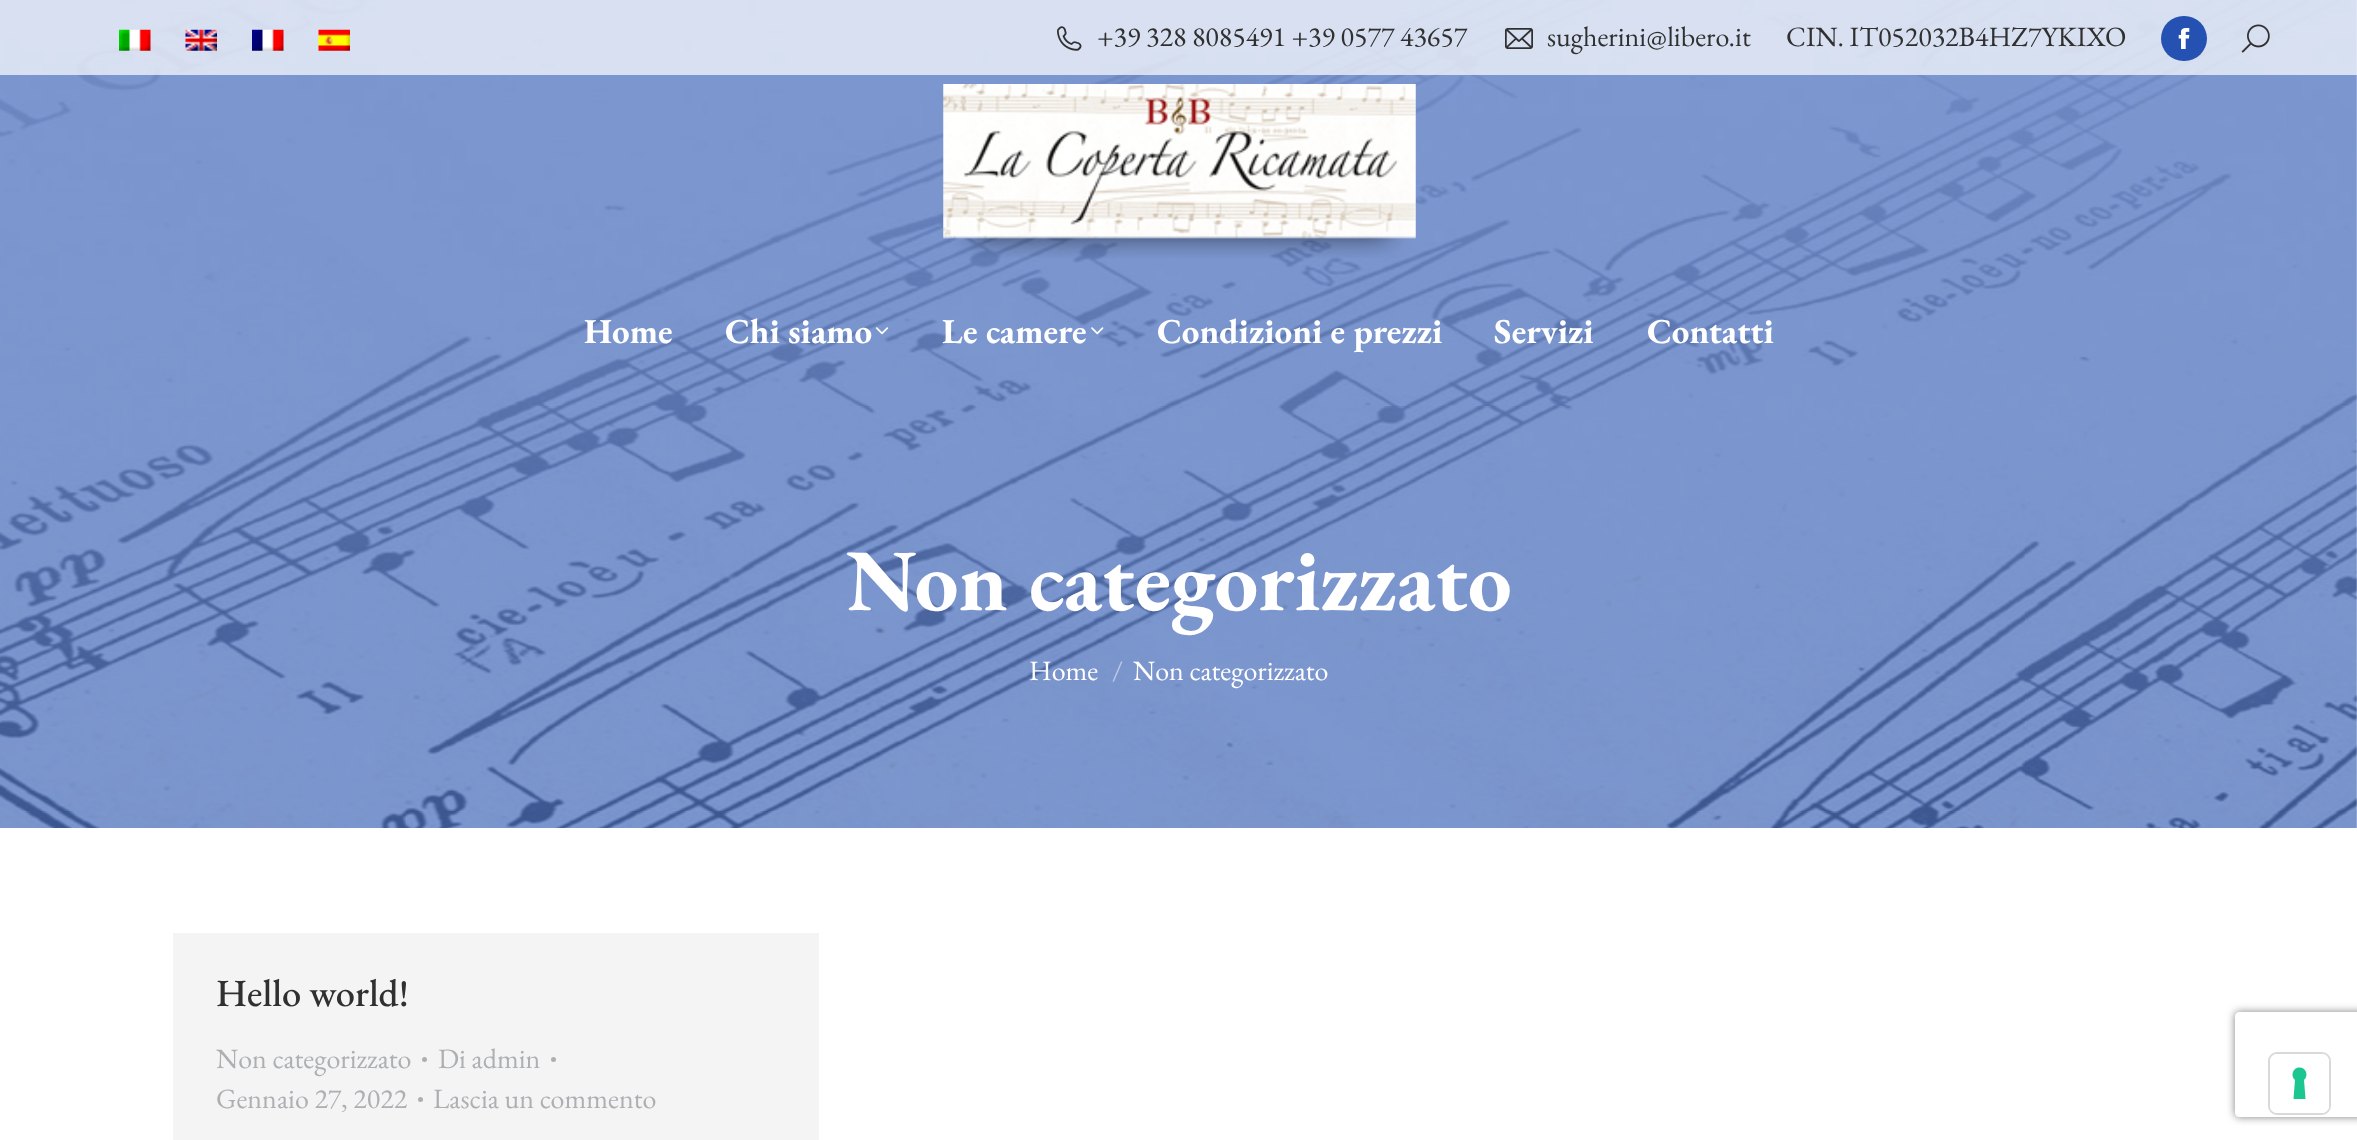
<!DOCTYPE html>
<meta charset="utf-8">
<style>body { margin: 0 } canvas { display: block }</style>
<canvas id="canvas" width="2357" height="1140"></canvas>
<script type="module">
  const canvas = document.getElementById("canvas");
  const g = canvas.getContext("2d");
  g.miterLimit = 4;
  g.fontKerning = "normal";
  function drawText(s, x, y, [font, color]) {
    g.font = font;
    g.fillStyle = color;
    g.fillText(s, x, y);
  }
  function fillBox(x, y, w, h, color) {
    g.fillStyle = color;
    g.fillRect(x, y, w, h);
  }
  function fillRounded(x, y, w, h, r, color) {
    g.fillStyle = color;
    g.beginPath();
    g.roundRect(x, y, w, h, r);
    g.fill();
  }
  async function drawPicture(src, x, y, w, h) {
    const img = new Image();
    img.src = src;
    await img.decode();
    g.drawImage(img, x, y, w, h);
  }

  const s1 = ["28px EB Garamond", "#303030"];
  const s2 = ["bold 35px EB Garamond", "#FFFFFF"];
  const s3 = ["bold 87.5px EB Garamond", "#FFFFFF"];
  const s4 = ["28px EB Garamond", "#FFFFFF"];
  const s5 = ["28px EB Garamond", "#BDCAE6"];
  const s6 = ["500 38.5px EB Garamond", "#303030"];
  const s7 = ["28px EB Garamond", "#ADAFB3"];

  fillBox(0, 0, 2357, 1140, "#FFFFFF");
  await drawPicture("pic12.png", 0, 0, 2357, 828);
  fillBox(0, 0, 2357, 75, "rgba(255, 255, 255, 0.7)");
  await drawPicture("pic1.png", 119, 29, 32, 22);
  await drawPicture("pic2.png", 185, 29, 32, 22);
  await drawPicture("pic3.png", 252, 29, 32, 22);
  await drawPicture("pic4.png", 318, 29, 32, 22);
  await drawPicture("pic5.png", 1057, 26, 25, 25);
  drawText("+39 328 8085491 +39 0577 43657", 1097, 46, s1);
  await drawPicture("pic6.png", 1505, 28, 28, 21);
  drawText("sugherini@libero.it", 1547, 46, s1);
  drawText("CIN. IT052032B4HZ7YKIXO", 1786, 46, s1);
  fillRounded(2161, 16, 46, 45, 22.5, "#2552B2");
  await drawPicture("pic7.png", 2178, 28, 12, 21);
  await drawPicture("pic8.png", 2241, 24, 29, 29);
  await drawPicture("pic9.png", 943, 84, 473, 174);
  drawText("Home", 584, 343, s2);
  drawText("Chi siamo", 725, 343, s2);
  await drawPicture("pic10.png", 875, 327, 14, 8);
  drawText("Le camere", 942, 343, s2);
  await drawPicture("pic11.png", 1091, 327, 13, 8);
  drawText("Condizioni e prezzi", 1157, 343, s2);
  drawText("Servizi", 1494, 343, s2);
  drawText("Contatti", 1647, 343, s2);
  drawText("Non categorizzato", 846, 610, s3);
  drawText("Home", 1029, 680, s4);
  drawText("/", 1112, 680, s5);
  drawText("Non categorizzato", 1133, 680, s4);
  fillBox(173, 933, 646, 207, "#F4F4F4");
  drawText("Hello world!", 216, 1006, s6);
  drawText("Non categorizzato", 216, 1068, s7);
  g.beginPath();
  g.arc(424.5, 1059.5, 2.5, 0, Math.PI * 2);
  g.fill();
  drawText("Di admin", 438, 1068, s7);
  g.beginPath();
  g.arc(553.5, 1059.5, 2.5, 0, Math.PI * 2);
  g.fill();
  drawText("Gennaio 27, 2022", 216, 1108, s7);
  g.beginPath();
  g.arc(420.5, 1099.5, 2.5, 0, Math.PI * 2);
  g.fill();
  drawText("Lascia un commento", 433, 1108, s7);
  g.save();
  g.beginPath();
  g.moveTo(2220, 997);
  g.lineTo(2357, 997);
  g.lineTo(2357, 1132);
  g.lineTo(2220, 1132);
  g.closePath();
  g.moveTo(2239, 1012);
  g.lineTo(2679, 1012);
  g.bezierCurveTo(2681, 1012, 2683, 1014, 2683, 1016);
  g.lineTo(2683, 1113);
  g.bezierCurveTo(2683, 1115, 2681, 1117, 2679, 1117);
  g.lineTo(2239, 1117);
  g.bezierCurveTo(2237, 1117, 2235, 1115, 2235, 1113);
  g.lineTo(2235, 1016);
  g.bezierCurveTo(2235, 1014, 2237, 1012, 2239, 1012);
  g.closePath();
  g.clip("evenodd");
  g.fillStyle = "#808080";
  g.filter = "blur(4.5px)";
  g.beginPath();
  g.roundRect(2235, 1012, 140, 105, 4);
  g.fill();
  g.filter = "none";
  g.restore();
  g.beginPath();
  g.roundRect(2269, 1053, 61, 61, 8);
  g.strokeStyle = "#D9D9D9";
  g.lineWidth = 2;
  g.stroke();
  fillRounded(2270, 1054, 59, 59, 7, "#FFFFFF");
  g.fillStyle = "#1CC691";
  g.beginPath();
  g.moveTo(2299.5, 1067.5);
  g.bezierCurveTo(2306, 1067.5, 2309, 1075.5, 2304, 1080);
  g.lineTo(2305.5, 1099);
  g.lineTo(2293.5, 1099);
  g.lineTo(2295, 1080);
  g.bezierCurveTo(2290, 1075.5, 2293, 1067.5, 2299.5, 1067.5);
  g.closePath();
  g.fill("evenodd");
</script>
